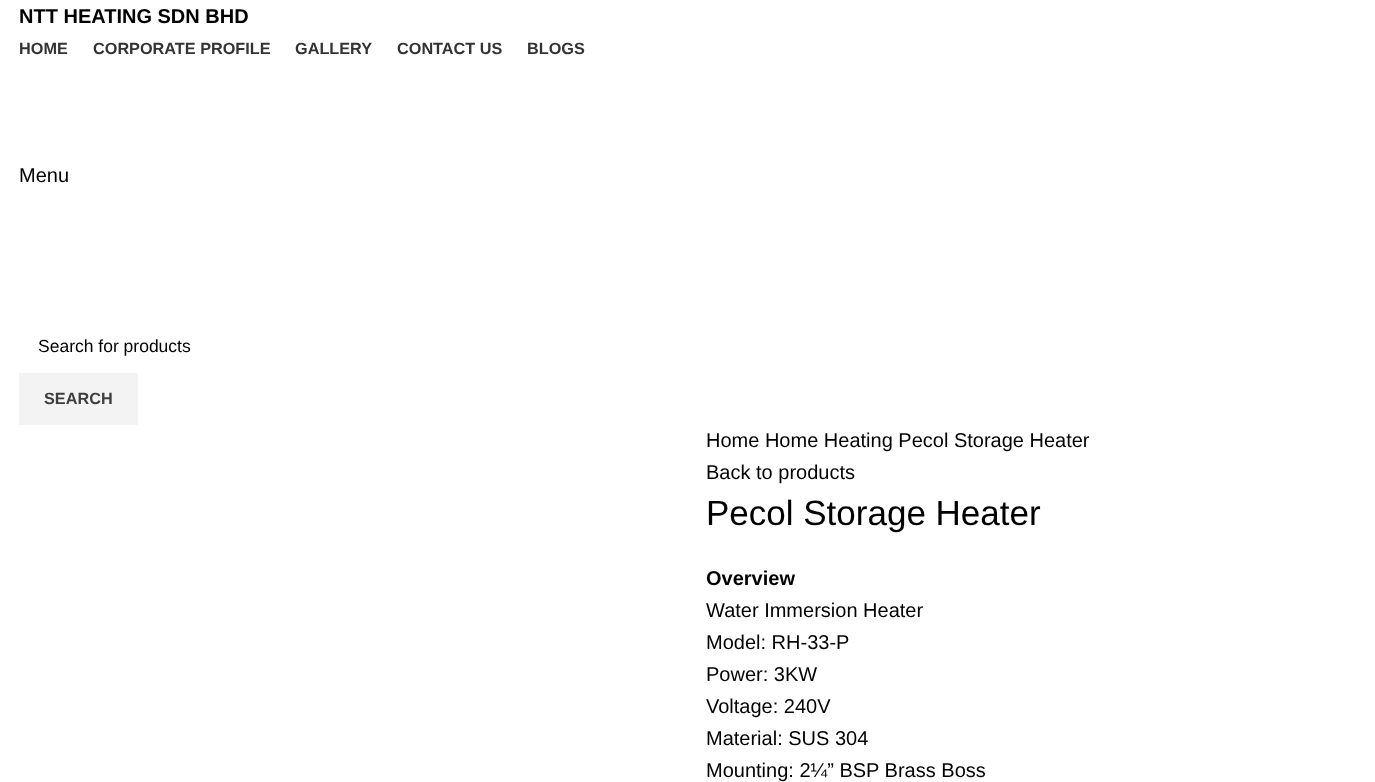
<!DOCTYPE html>
<meta charset="utf-8">
<style>body { margin: 0 } canvas { display: block }</style>
<canvas id="canvas" width="1375" height="782"></canvas>
<script type="module">
  const canvas = document.getElementById("canvas");
  const g = canvas.getContext("2d");
  g.miterLimit = 4;
  g.fontKerning = "normal";
  function drawText(s, x, y, [font, color]) {
    g.font = font;
    g.fillStyle = color;
    g.fillText(s, x, y);
  }
  function fillBox(x, y, w, h, color) {
    g.fillStyle = color;
    g.fillRect(x, y, w, h);
  }

  const s1 = ["bold 20px Liberation Sans", "#000000"];
  const s2 = ["bold 16.25px Liberation Sans", "#333333"];
  const s3 = ["20px Liberation Sans", "#000000"];
  const s4 = ["17.5px Liberation Sans", "#000000"];
  const s5 = ["bold 16.25px Liberation Sans", "#3E3E3E"];
  const s6 = ["35px Liberation Sans", "#000000"];

  fillBox(0, 0, 1375, 782, "#FFFFFF");
  drawText("NTT HEATING SDN BHD", 19, 23, s1);
  drawText("HOME", 19, 54, s2);
  drawText("CORPORATE PROFILE", 93, 54, s2);
  drawText("GALLERY", 295, 54, s2);
  drawText("CONTACT US", 397, 54, s2);
  drawText("BLOGS", 527, 54, s2);
  drawText("Menu", 19, 182, s3);
  drawText("Search for products", 38, 352, s4);
  fillBox(19, 373, 119, 52, "#F3F3F3");
  drawText("SEARCH", 44, 404, s5);
  drawText("Home Home Heating Pecol Storage Heater", 706, 447, s3);
  drawText("Back to products", 706, 479, s3);
  drawText("Pecol Storage Heater", 706, 525, s6);
  drawText("Overview", 706, 585, s1);
  drawText("Water Immersion Heater", 706, 617, s3);
  drawText("Model: RH-33-P", 706, 649, s3);
  drawText("Power: 3KW", 706, 681, s3);
  drawText("Voltage: 240V", 706, 713, s3);
  drawText("Material: SUS 304", 706, 745, s3);
  drawText("Mounting: 2¼” BSP Brass Boss", 706, 777, s3);
</script>
